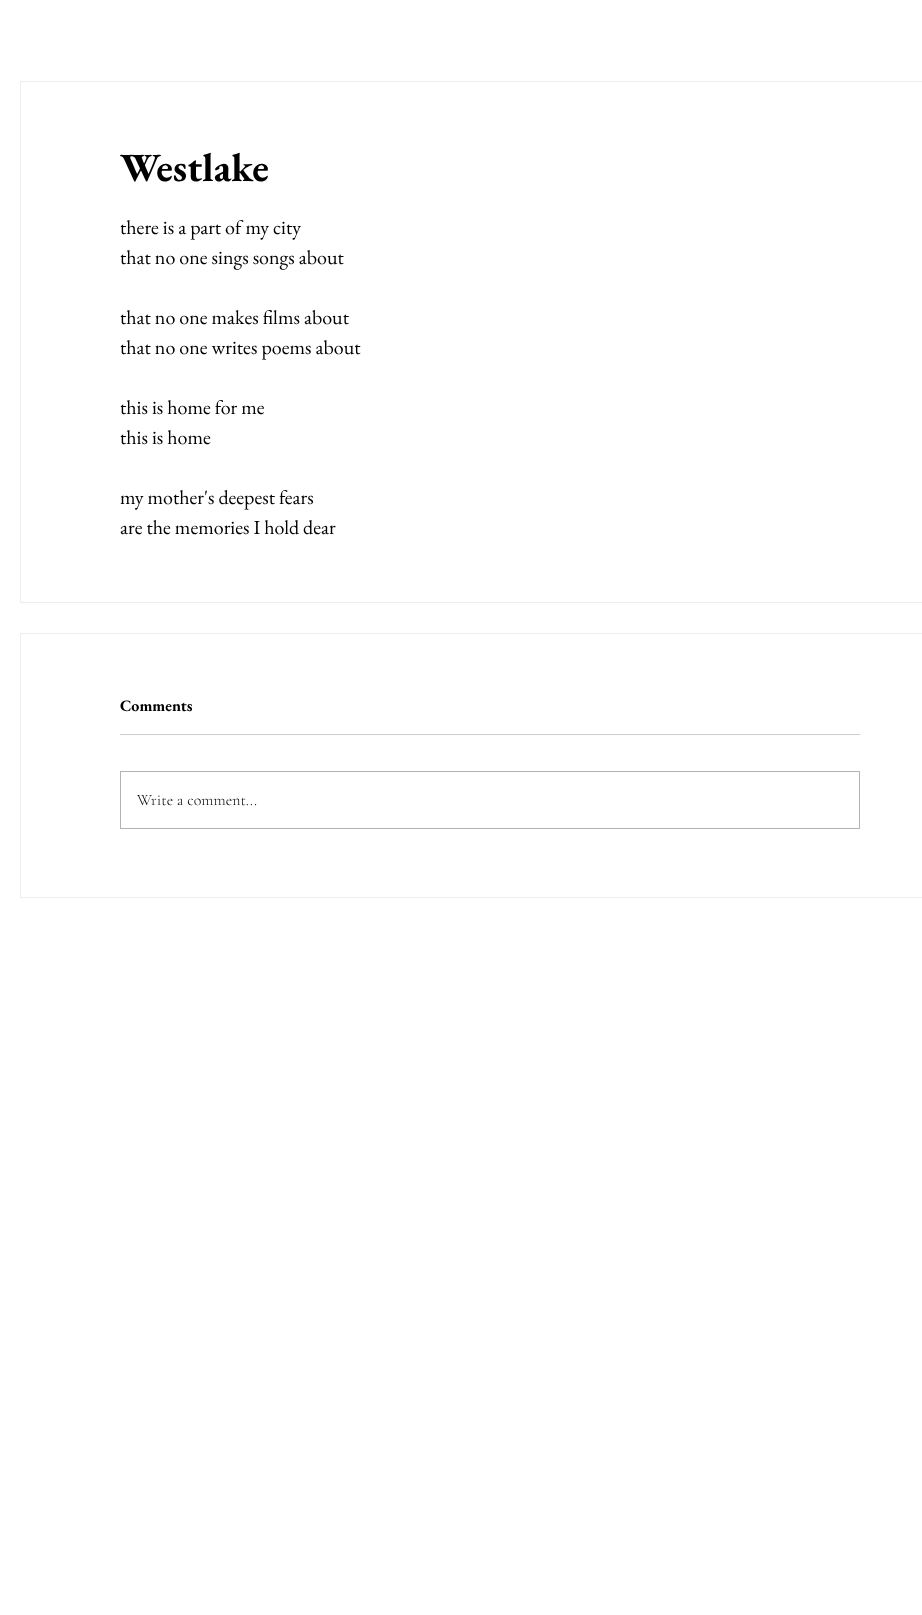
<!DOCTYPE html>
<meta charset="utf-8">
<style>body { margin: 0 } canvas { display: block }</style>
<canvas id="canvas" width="922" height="1615"></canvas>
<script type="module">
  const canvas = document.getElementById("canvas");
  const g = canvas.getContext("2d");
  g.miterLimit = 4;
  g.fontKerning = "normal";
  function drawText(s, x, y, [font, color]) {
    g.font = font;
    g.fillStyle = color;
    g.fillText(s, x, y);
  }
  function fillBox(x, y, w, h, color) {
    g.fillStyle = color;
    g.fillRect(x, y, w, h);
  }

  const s1 = ["bold 40px EB Garamond", "#000000"];
  const s2 = ["20px EB Garamond", "#000000"];
  const s3 = ["bold 16px EB Garamond", "#000000"];
  const s4 = ["300 16px Cormorant Garamond", "#000000"];

  fillBox(0, 0, 922, 1615, "#FFFFFF");
  g.strokeStyle = "#EEECEC";
  g.strokeRect(20.5, 81.5, 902, 521);
  drawText("Westlake", 120, 181, s1);
  drawText("there is a part of my city", 120, 234, s2);
  drawText("that no one sings songs about", 120, 264, s2);
  drawText("that no one makes films about", 120, 324, s2);
  drawText("that no one writes poems about", 120, 354, s2);
  drawText("this is home for me", 120, 414, s2);
  drawText("this is home", 120, 444, s2);
  drawText("my mother's deepest fears", 120, 504, s2);
  drawText("are the memories I hold dear", 120, 534, s2);
  g.strokeRect(20.5, 633.5, 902, 264);
  drawText("Comments", 120, 711, s3);
  fillBox(120, 734, 740, 1, "#CCCCCC");
  g.strokeStyle = "#B3B3B3";
  g.strokeRect(120.5, 771.5, 739, 57);
  drawText("Write a comment...", 137, 805, s4);
</script>
